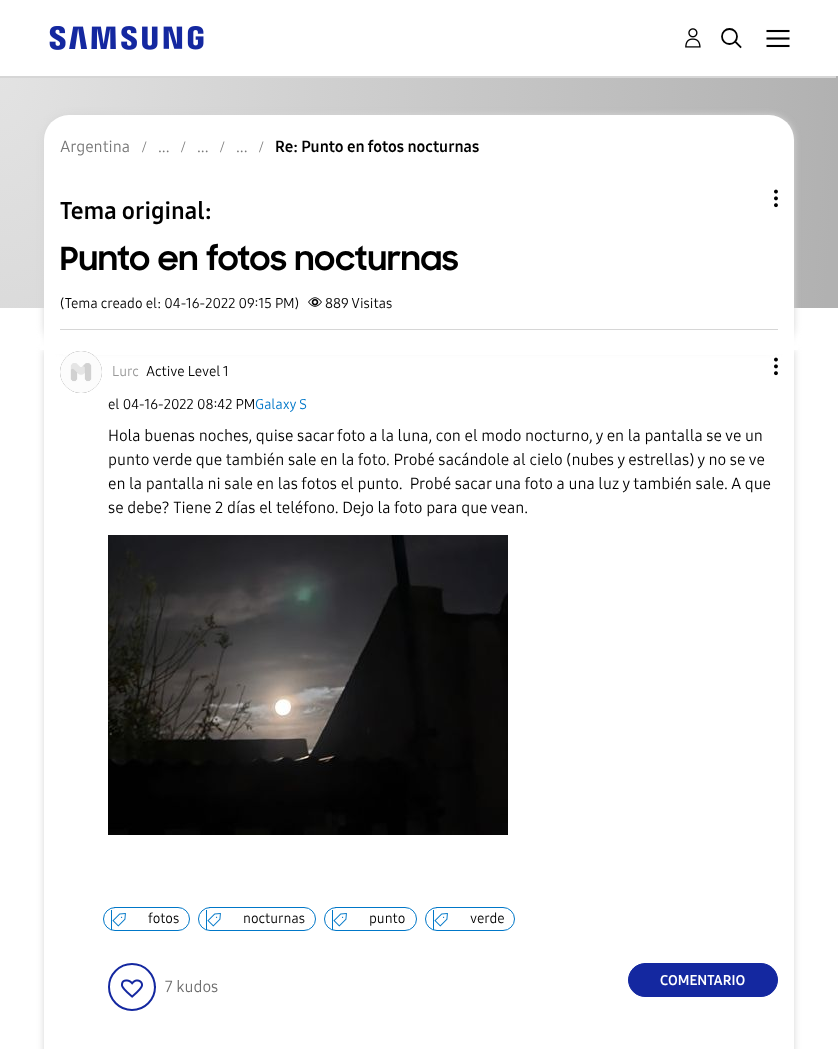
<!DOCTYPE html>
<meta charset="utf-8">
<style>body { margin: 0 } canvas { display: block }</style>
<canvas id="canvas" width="838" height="1049"></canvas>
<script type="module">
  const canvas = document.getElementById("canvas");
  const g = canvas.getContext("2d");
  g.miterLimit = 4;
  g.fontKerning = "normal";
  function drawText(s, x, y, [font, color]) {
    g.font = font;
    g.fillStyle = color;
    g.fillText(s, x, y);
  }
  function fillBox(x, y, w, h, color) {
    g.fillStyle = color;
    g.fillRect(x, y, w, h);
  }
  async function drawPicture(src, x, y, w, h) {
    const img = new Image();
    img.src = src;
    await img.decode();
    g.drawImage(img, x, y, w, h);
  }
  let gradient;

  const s1 = ["16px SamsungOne", "#767676"];
  const s2 = ["16px Liberation Serif", "#767676"];
  const s3 = ["bold 16px SamsungOne", "#000000"];
  const s4 = ["bold 24px SamsungOne", "#000000"];
  const s5 = ["bold 32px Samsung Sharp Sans", "#000000"];
  const s6 = ["14px SamsungOne", "#000000"];
  const s7 = ["14px SamsungOne", "#999999"];
  const s8 = ["14px SamsungOne", "#0077C8"];
  const s9 = ["16px SamsungOne", "#000000"];
  const s10 = ["16px SamsungOne", "#6E6E6E"];
  const s11 = ["bold 14px SamsungOne", "#FFFFFF"];

  fillBox(0, 0, 838, 1049, "#FFFFFF");
  g.save();
  g.beginPath();
  g.moveTo(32, 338);
  g.lineTo(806, 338);
  g.lineTo(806, 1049);
  g.lineTo(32, 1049);
  g.closePath();
  g.moveTo(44, 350);
  g.lineTo(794, 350);
  g.lineTo(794, 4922);
  g.lineTo(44, 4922);
  g.closePath();
  g.clip("evenodd");
  g.fillStyle = "#D6D6D6";
  g.filter = "blur(3.5px)";
  g.beginPath();
  g.rect(44, 350, 750, 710);
  g.fill();
  g.filter = "none";
  g.restore();
  fillBox(40, 345, 758, 5, "#FFFFFF");
  await drawPicture("pic1.png", 49, 26, 155, 24);
  await drawPicture("pic2.png", 685, 28, 16, 20);
  g.beginPath();
  g.arc(729.5, 36.5, 7.5, 0, Math.PI * 2);
  g.strokeStyle = "#000000";
  g.lineWidth = 1.8;
  g.stroke();
  g.beginPath();
  g.moveTo(736, 42.5);
  g.lineTo(740.5, 47);
  g.lineCap = "square";
  g.stroke();
  await drawPicture("pic3.png", 766, 29, 24, 19);
  gradient = g.createRadialGradient(0, 39.57, 0, 0, 39.57, 838);
  gradient.addColorStop(0, "#E3E3E3");
  gradient.addColorStop(1, "#B1B1B1");
  g.fillStyle = gradient;
  g.beginPath();
  g.rect(0, 76, 838, 232);
  g.save();
  g.clip();
  g.scale(1, 1440 / 838);
  g.fillRect(0, 0, 838, 611);
  g.restore();
  fillBox(0, 76, 836, 2, "#D6D6D6");
  g.filter = "blur(3.5px)";
  g.beginPath();
  g.roundRect(44, 115, 750, 235, 25);
  g.fill();
  g.filter = "none";
  g.fillStyle = "#FFFFFF";
  g.beginPath();
  g.roundRect(44, 115, 750, 235, [25, 25, 0, 0]);
  g.fill();
  fillBox(60, 329, 718, 1, "#D6D6D6");
  drawText("Argentina", 60, 152, s1);
  drawText("/", 142, 152, s2);
  drawText("...", 158, 152, s1);
  drawText("/", 181, 152, s2);
  drawText("...", 197, 152, s1);
  drawText("/", 220, 152, s2);
  drawText("...", 236, 152, s1);
  drawText("/", 259, 152, s2);
  drawText("Re: Punto en fotos nocturnas", 275, 152, s3);
  drawText("Tema original:", 60, 219, s4);
  await drawPicture("pic4.png", 774, 189, 4, 19);
  drawText("Punto en fotos nocturnas", 60, 270, s5);
  drawText("(Tema creado el: 04-16-2022 09:15 PM)", 60, 308, s6);
  await drawPicture("pic5.png", 308, 297, 14, 10);
  drawText("889 Visitas", 325, 308, s6);
  fillBox(45, 350, 748, 4, "#FFFFFF");
  fillBox(63, 354, 712, 1, "#FFFFFF");
  g.fillStyle = "#999999";
  g.filter = "blur(0.5px)";
  g.beginPath();
  g.roundRect(60, 351, 42, 42, 21);
  g.fill();
  g.filter = "none";
  await drawPicture("pic6.png", 60, 351, 42, 42);
  drawText("Lurc", 112, 376, s7);
  drawText("Active Level 1", 146, 376, s6);
  await drawPicture("pic4.png", 774, 357, 4, 19);
  drawText("el 04-16-2022 08:42 PM", 108, 409, s6);
  drawText("Galaxy S", 255, 409, s8);
  drawText("Hola buenas noches, quise sacar foto a la luna, con el modo nocturno, y en la pantalla se ve un", 108, 441, s9);
  drawText("punto verde que también sale en la foto. Probé sacándole al cielo (nubes y estrellas) y no se ve", 108, 465, s9);
  drawText("en la pantalla ni sale en las fotos el punto.  Probé sacar una foto a una luz y también sale. A que", 108, 489, s9);
  drawText("se debe? Tiene 2 días el teléfono. Dejo la foto para que vean.", 108, 513, s9);
  await drawPicture("pic7.png", 108, 535, 400, 300);
  g.beginPath();
  g.roundRect(103.5, 907.5, 86, 23, 11.5);
  g.strokeStyle = "#0077C8";
  g.lineWidth = 1;
  g.stroke();
  await drawPicture("pic8.png", 112, 913, 14, 14);
  drawText("fotos", 148, 923, s6);
  fillBox(111, 910, 1, 20, "#0077C8");
  g.beginPath();
  g.roundRect(198.5, 907.5, 117, 23, 11.5);
  g.stroke();
  await drawPicture("pic8.png", 207, 913, 14, 14);
  drawText("nocturnas", 243, 923, s6);
  fillBox(206, 910, 1, 20, "#0077C8");
  g.beginPath();
  g.roundRect(324.5, 907.5, 92, 23, 11.5);
  g.stroke();
  await drawPicture("pic8.png", 333, 913, 14, 14);
  drawText("punto", 369, 923, s6);
  fillBox(332, 910, 1, 20, "#0077C8");
  g.beginPath();
  g.roundRect(425.5, 907.5, 89, 23, 11.5);
  g.stroke();
  await drawPicture("pic8.png", 434, 913, 14, 14);
  drawText("verde", 470, 923, s6);
  fillBox(433, 910, 1, 20, "#0077C8");
  g.beginPath();
  g.arc(132, 987, 23, 0, Math.PI * 2);
  g.strokeStyle = "#1428A0";
  g.lineWidth = 2;
  g.stroke();
  await drawPicture("pic9.png", 121, 979, 22, 19);
  drawText("7 kudos", 165, 992, s10);
  g.fillStyle = "#1428A0";
  g.beginPath();
  g.roundRect(628.5, 963.5, 149, 33, 16.5);
  g.fill();
  g.lineWidth = 1;
  g.stroke();
  drawText("COMENTARIO", 660, 985, s11);
</script>
